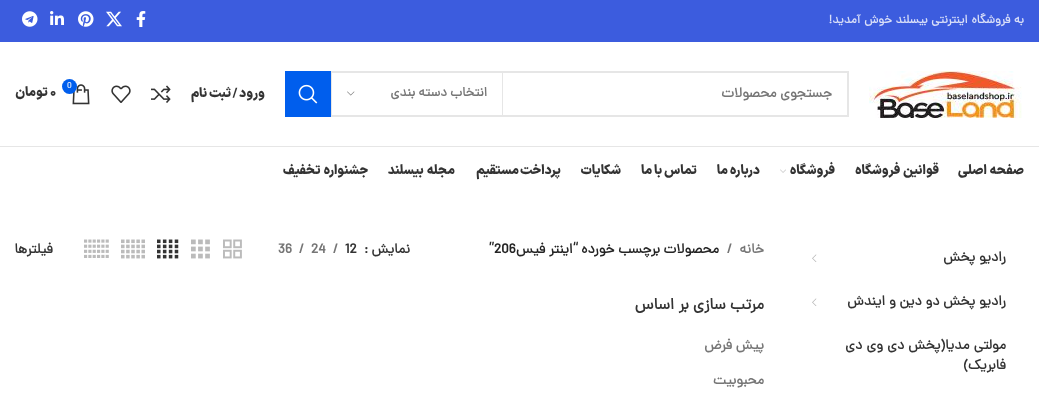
<!DOCTYPE html>
<meta charset="utf-8">
<style>body { margin: 0 } canvas { display: block }</style>
<canvas id="canvas" width="1039" height="394"></canvas>
<script type="module">
  const canvas = document.getElementById("canvas");
  const g = canvas.getContext("2d");
  g.miterLimit = 4;
  g.fontKerning = "normal";
  function drawText(s, x, y, [font, color]) {
    g.font = font;
    g.fillStyle = color;
    g.fillText(s, x, y);
  }
  function fillBox(x, y, w, h, color) {
    g.fillStyle = color;
    g.fillRect(x, y, w, h);
  }
  async function drawPicture(src, x, y, w, h) {
    const img = new Image();
    img.src = src;
    await img.decode();
    g.drawImage(img, x, y, w, h);
  }

  const s1 = ["bold 12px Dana", "#D8DEF8"];
  const s2 = ["bold 14px Dana", "#767676"];
  const s3 = ["bold 13px Dana", "#767676"];
  const s4 = ["900 13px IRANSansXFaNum", "#333333"];
  const s5 = ["9px Dana", "#FFFFFF"];
  const s6 = ["bold 14px Dana", "#333333"];
  const s7 = ["bold 14px Dana", "#242424"];
  const s8 = ["bold 16px Dana", "#333333"];

  fillBox(0, 0, 1039, 394, "#FFFFFF");
  fillBox(0, 0, 1039, 42, "#3C5CDE");
  g.letterSpacing = "-0.05px";
  g.wordSpacing = "0.5px";
  g.direction = "rtl";
  drawText("به فروشگاه اینترنتی بیسلند خوش آمدید!", 1024, 23, s1);
  await drawPicture("pic1.png", 136, 11, 10, 16);
  await drawPicture("pic2.png", 106, 11, 16, 16);
  await drawPicture("pic3.png", 78, 11, 16, 16);
  await drawPicture("pic4.png", 50, 11, 14, 14);
  await drawPicture("pic5.png", 22, 11, 16, 16);
  fillBox(0, 146, 1039, 1, "#E6E6E6");
  await drawPicture("pic6.png", 869, 71, 153, 47);
  g.strokeStyle = "#E6E6E6";
  g.lineWidth = 2;
  g.strokeRect(286, 72, 562, 44);
  g.letterSpacing = "0px";
  g.wordSpacing = "0px";
  drawText("جستجوی محصولات", 832, 97, s2);
  fillBox(502, 73, 1, 42, "#E6E6E6");
  fillBox(331, 73, 1, 42, "#E6E6E6");
  g.letterSpacing = "-0.05px";
  drawText("انتخاب دسته بندی", 487, 96, s3);
  await drawPicture("pic7.png", 347, 91, 8, 5);
  fillBox(285, 71, 46, 46, "#005EED");
  await drawPicture("pic8.png", 298, 84, 20, 20);
  drawText("ورود / ثبت نام", 265, 97, s4);
  await drawPicture("pic9.png", 151, 85, 20, 18);
  await drawPicture("pic10.png", 111, 85, 20, 18);
  await drawPicture("pic11.png", 72, 84, 18, 21);
  g.fillStyle = "#005EED";
  g.beginPath();
  g.arc(69.5, 86.5, 7.5, 0, Math.PI * 2);
  g.fill();
  g.letterSpacing = "0px";
  g.direction = "ltr";
  drawText("0", 67, 88, s5);
  g.letterSpacing = "-0.05px";
  drawText("0", 50, 96, s4);
  g.direction = "rtl";
  drawText("تومان", 48, 96, s4);
  g.wordSpacing = "1px";
  drawText("صفحه اصلی", 1024, 174, s4);
  drawText("قوانین فروشگاه", 939, 174, s4);
  g.wordSpacing = "0px";
  drawText("فروشگاه", 835, 174, s4);
  await drawPicture("pic12.png", 780, 169, 6, 4);
  drawText("درباره ما", 760, 174, s4);
  drawText("تماس با ما", 697, 174, s4);
  drawText("شکایات", 621, 174, s4);
  g.wordSpacing = "-1px";
  drawText("پرداخت مستقیم", 561, 174, s4);
  g.wordSpacing = "1px";
  drawText("مجله بیسلند", 455, 174, s4);
  drawText("جشنواره تخفیف", 368, 174, s4);
  g.wordSpacing = "0px";
  drawText("رادیو پخش", 1006, 261, s6);
  await drawPicture("pic13.png", 812, 254, 5, 8);
  drawText("رادیو پخش دو دین و ایندش", 1006, 305, s6);
  await drawPicture("pic13.png", 812, 298, 5, 8);
  g.wordSpacing = "0.5px";
  drawText("مولتی مدیا(پخش دی وی دی", 1006, 349, s6);
  g.wordSpacing = "0px";
  drawText("فابریک)", 1006, 369, s6);
  drawText("خانه", 764, 253, s2);
  g.direction = "ltr";
  drawText("/", 727, 253, s2);
  g.direction = "rtl";
  drawText("محصولات برچسب خورده", 719, 253, s7);
  drawText("“اینتر فیس", 578, 253, s7);
  g.direction = "ltr";
  drawText("”206", 489, 253, s7);
  g.direction = "rtl";
  drawText("نمایش", 410, 253, s6);
  g.direction = "ltr";
  drawText(":", 364, 253, s6);
  drawText("12", 345, 253, s6);
  drawText("/", 333, 253, s2);
  drawText("24", 311, 253, s2);
  drawText("/", 299, 253, s2);
  drawText("36", 278, 253, s2);
  await drawPicture("pic14.png", 223, 239, 19, 20);
  await drawPicture("pic15.png", 191, 239, 19, 20);
  await drawPicture("pic16.png", 157, 239, 22, 20);
  await drawPicture("pic17.png", 121, 239, 24, 20);
  await drawPicture("pic18.png", 84, 239, 25, 19);
  g.direction = "rtl";
  drawText("فیلترها", 53, 253, s6);
  drawText("مرتب سازی بر اساس", 764, 309, s8);
  drawText("پیش فرض", 764, 349, s2);
  drawText("محبوبیت", 764, 384, s2);
</script>
